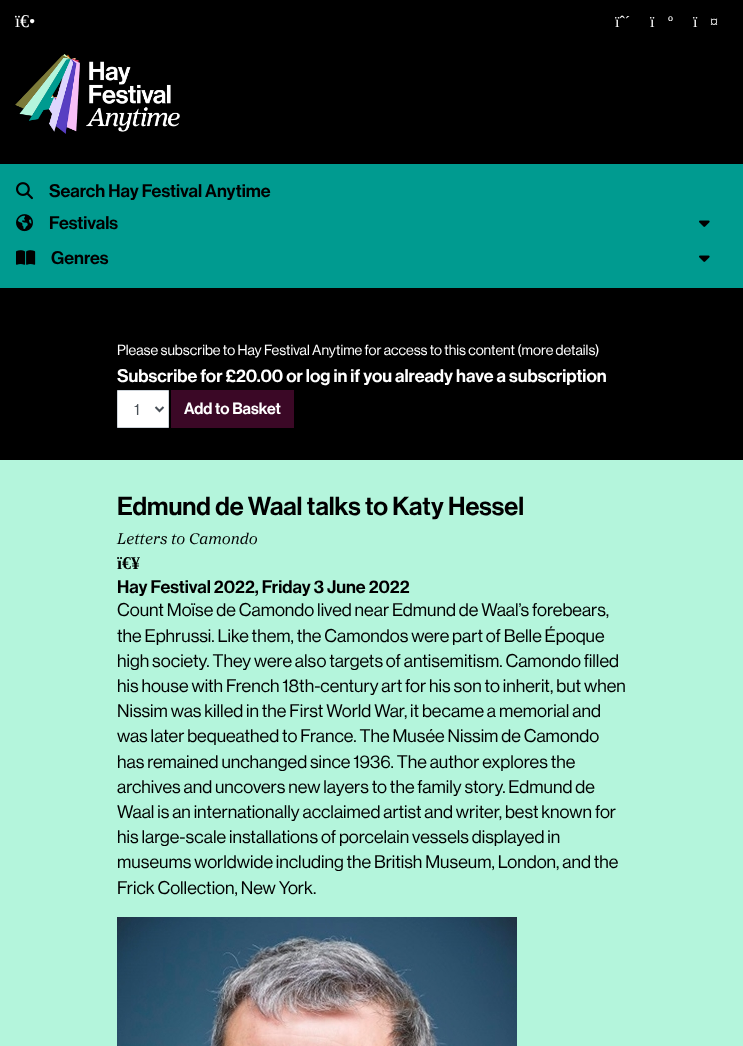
<!DOCTYPE html>
<meta charset="utf-8">
<style>body { margin: 0 } canvas { display: block }</style>
<canvas id="canvas" width="743" height="1046"></canvas>
<script type="module">
  const canvas = document.getElementById("canvas");
  const g = canvas.getContext("2d");
  g.miterLimit = 4;
  g.fontKerning = "normal";
  function drawText(s, x, y, [font, color]) {
    g.font = font;
    g.fillStyle = color;
    g.fillText(s, x, y);
  }
  function fillBox(x, y, w, h, color) {
    g.fillStyle = color;
    g.fillRect(x, y, w, h);
  }
  async function drawPicture(src, x, y, w, h) {
    const img = new Image();
    img.src = src;
    await img.decode();
    g.drawImage(img, x, y, w, h);
  }

  const s1 = ["18px Liberation Serif", "#FFFFFF"];
  const s2 = ["16px Liberation Serif", "#FFFFFF"];
  const s3 = ["500 18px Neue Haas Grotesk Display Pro", "#000000"];
  const s4 = ["500 14.4px 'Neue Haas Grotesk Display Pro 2'", "#FFFFFF"];
  const s5 = ["500 18px Neue Haas Grotesk Display Pro", "#FFFFFF"];
  const s6 = ["500 16px 'Neue Haas Grotesk Display Pro 2'", "#495057"];
  const s7 = ["500 16px Neue Haas Grotesk Display Pro", "#FFFFFF"];
  const s8 = ["500 25.6px Neue Haas Grotesk Display Pro", "#000000"];
  const s9 = ["italic 16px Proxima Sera", "#000000"];
  const s10 = ["bold 18px Liberation Serif", "#000000"];
  const s11 = ["500 18px 'Neue Haas Grotesk Display Pro 2'", "#000000"];

  fillBox(0, 0, 743, 1046, "#000000");
  drawText("ï€•", 15, 27, s1);
  drawText("ïˆ´", 615, 27, s2);
  drawText("ï", 650, 27, s2);
  drawText("º", 668, 27, s2);
  drawText("ï", 693, 27, s2);
  drawText("¤", 710, 27, s2);
  await drawPicture("pic1.png", 15, 54, 165, 80);
  fillBox(0, 164, 743, 124, "#009B90");
  await drawPicture("pic2.png", 16, 182, 17, 18);
  drawText("Search Hay Festival Anytime", 49, 197, s3);
  await drawPicture("pic3.png", 16, 214, 17, 18);
  drawText("Festivals", 49, 229, s3);
  await drawPicture("pic4.png", 699, 220, 11, 7);
  await drawPicture("pic5.png", 16, 250, 20, 15);
  drawText("Genres", 51, 264, s3);
  await drawPicture("pic4.png", 699, 255, 11, 7);
  drawText("Please subscribe to Hay Festival Anytime for access to this content (more details", 117, 355, s4);
  drawText(")", 595, 355, s4);
  drawText("Subscribe for £20.00 or log in if you already have a subscription", 117, 382, s5);
  g.beginPath();
  g.rect(117.5, 390.5, 51, 37);
  g.fill();
  g.strokeStyle = "#CED4DA";
  g.stroke();
  g.beginPath();
  g.moveTo(155.5, 407);
  g.lineTo(159.5, 411);
  g.lineTo(163.5, 407);
  g.strokeStyle = "#495057";
  g.lineWidth = 2;
  g.stroke();
  drawText("1", 134, 415, s6);
  fillBox(171, 390, 123, 38, "#3B0826");
  drawText("Add to Basket", 184, 414, s7);
  fillBox(0, 460, 743, 586, "#B4F5DC");
  drawText("Edmund de Waal talks to Katy Hessel", 117, 515, s8);
  drawText("Letters to Camondo", 117, 544, s9);
  drawText("ï€¥", 117, 569, s10);
  drawText("Hay Festival 2022, Friday 3 June 2022", 117, 593, s3);
  drawText("Count Moïse de Camondo lived near Edmund de Waal’s forebears,", 117, 616, s11);
  drawText("the Ephrussi. Like them, the Camondos were part of Belle Époque", 117, 642, s11);
  drawText("high society. They were also targets of antisemitism. Camondo filled", 117, 667, s11);
  drawText("his house with French 18th-century art for his son to inherit, but when", 117, 692, s11);
  drawText("Nissim was killed in the First World War, it became a memorial and", 117, 717, s11);
  drawText("was later bequeathed to France. The Musée Nissim de Camondo", 117, 742, s11);
  drawText("has remained unchanged since 1936. The author explores the", 117, 768, s11);
  drawText("archives and uncovers new layers to the family story. Edmund de", 117, 793, s11);
  drawText("Waal is an internationally acclaimed artist and writer, best known for", 117, 818, s11);
  drawText("his large-scale installations of porcelain vessels displayed in", 117, 843, s11);
  drawText("museums worldwide including the British Museum, London, and the", 117, 868, s11);
  drawText("Frick Collection, New York.", 117, 894, s11);
  await drawPicture("pic6.png", 117, 917, 400, 129);
</script>
